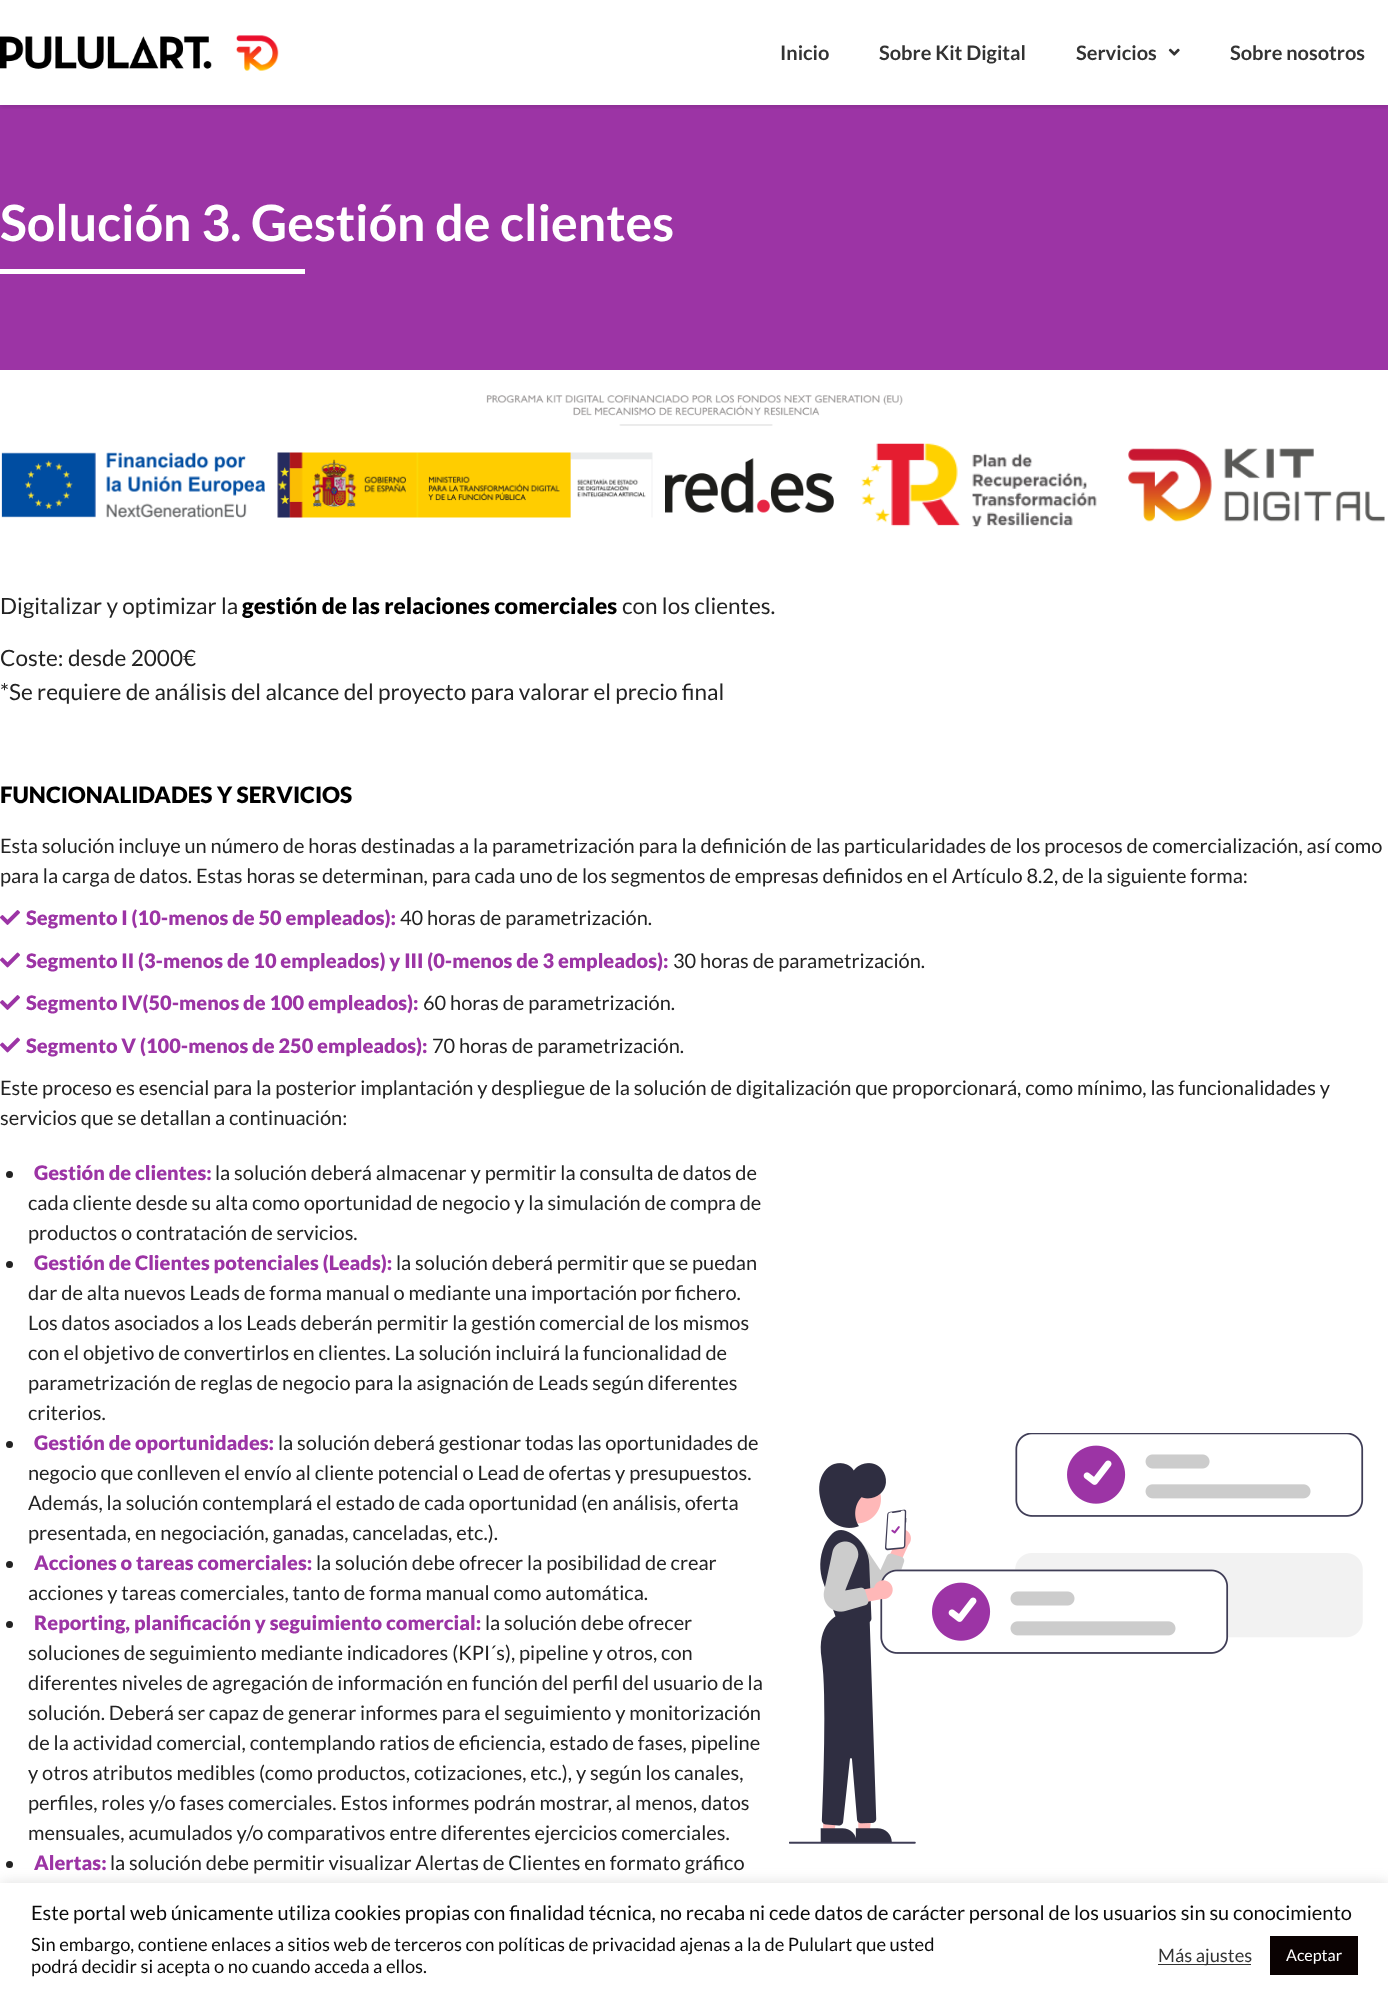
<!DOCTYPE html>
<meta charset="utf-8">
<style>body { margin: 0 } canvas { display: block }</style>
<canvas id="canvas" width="1388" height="1998"></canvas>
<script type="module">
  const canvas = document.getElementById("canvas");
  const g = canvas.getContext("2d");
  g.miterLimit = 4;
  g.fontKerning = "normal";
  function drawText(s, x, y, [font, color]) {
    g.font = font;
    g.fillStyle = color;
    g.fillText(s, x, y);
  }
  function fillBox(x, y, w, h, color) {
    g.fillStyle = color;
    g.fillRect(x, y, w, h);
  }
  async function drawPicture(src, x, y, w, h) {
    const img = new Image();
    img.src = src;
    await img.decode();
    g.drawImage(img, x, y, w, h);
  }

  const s1 = ["bold 20px Lato", "#333333"];
  const s2 = ["bold 50px Lato", "#FFFFFF"];
  const s3 = ["22.5px Lato", "#232323"];
  const s4 = ["900 22.5px Lato", "#000000"];
  const s5 = ["20px Lato", "#232323"];
  const s6 = ["900 20px Lato", "#9C34A5"];
  const s7 = ["20px Lato", "#0A0A0A"];
  const s8 = ["18.35px Lato", "#0A0A0A"];
  const s9 = ["18.35px Lato", "#333333"];
  const s10 = ["16px Lato", "#FFFFFF"];

  fillBox(0, 0, 1388, 1998, "#FFFFFF");
  fillBox(0, 105, 1388, 265, "#9C34A5");
  g.save();
  g.beginPath();
  g.rect(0, 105, 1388, 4);
  g.clip();
  g.fillStyle = "rgba(0, 0, 0, 0.15)";
  g.filter = "blur(2.5px)";
  g.beginPath();
  g.rect(0, 1, 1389, 105);
  g.fill();
  g.filter = "none";
  g.restore();
  await drawPicture("pic1.png", 0, 36, 212, 33);
  await drawPicture("pic2.png", 236, 35, 43, 36);
  drawText("Inicio", 780, 60, s1);
  drawText("Sobre Kit Digital", 879, 60, s1);
  drawText("Servicios", 1076, 60, s1);
  await drawPicture("pic3.png", 1168, 48, 12, 8);
  drawText("Sobre nosotros", 1230, 60, s1);
  drawText("Solución 3. Gestión de clientes", 0, 241, s2);
  fillBox(0, 269, 305, 5, "#FFFFFF");
  await drawPicture("pic4.png", 486, 395, 417, 31);
  await drawPicture("pic5.png", 1, 452, 264, 66);
  await drawPicture("pic6.png", 277, 452, 376, 66);
  await drawPicture("pic7.png", 665, 458, 169, 55);
  await drawPicture("pic8.png", 861, 443, 236, 84);
  await drawPicture("pic9.png", 1128, 448, 257, 74);
  drawText("Digitalizar y optimizar la", 0, 614, s3);
  drawText("gestión de las relaciones comerciales", 242, 614, s4);
  drawText("con los clientes.", 622, 614, s3);
  drawText("Coste: desde 2000€", 0, 666, s3);
  drawText("*Se requiere de análisis del alcance del proyecto para valorar el precio final", 0, 700, s3);
  drawText("FUNCIONALIDADES Y SERVICIOS", 0, 803, s4);
  drawText("Esta solución incluye un número de horas destinadas a la parametrización para la definición de las particularidades de los procesos de comercialización, así como", 0, 853, s5);
  drawText("para la carga de datos. Estas horas se determinan, para cada uno de los segmentos de empresas definidos en el Artículo 8.2, de la siguiente forma:", 0, 883, s5);
  await drawPicture("pic10.png", 0, 910, 20, 15);
  drawText("Segmento I (10-menos de 50 empleados):", 26, 925, s6);
  drawText("40 horas de parametrización.", 400, 925, s5);
  await drawPicture("pic11.png", 0, 952, 20, 16);
  drawText("Segmento II (3-menos de 10 empleados) y III (0-menos de 3 empleados):", 26, 968, s6);
  drawText("30 horas de parametrización.", 673, 968, s5);
  await drawPicture("pic10.png", 0, 995, 20, 15);
  drawText("Segmento IV(50-menos de 100 empleados):", 26, 1010, s6);
  drawText("60 horas de parametrización.", 423, 1010, s5);
  await drawPicture("pic11.png", 0, 1037, 20, 16);
  drawText("Segmento V (100-menos de 250 empleados):", 26, 1053, s6);
  drawText("70 horas de parametrización.", 432, 1053, s5);
  drawText("Este proceso es esencial para la posterior implantación y despliegue de la solución de digitalización que proporcionará, como mínimo, las funcionalidades y", 0, 1095, s5);
  drawText("servicios que se detallan a continuación:", 0, 1125, s5);
  g.beginPath();
  g.arc(9.5, 1174.5, 3.5, 0, Math.PI * 2);
  g.fill();
  drawText("Gestión de clientes:", 34, 1180, s6);
  drawText("la solución deberá almacenar y permitir la consulta de datos de", 215, 1180, s5);
  drawText("cada cliente desde su alta como oportunidad de negocio y la simulación de compra de", 28, 1210, s5);
  drawText("productos o contratación de servicios.", 28, 1240, s5);
  g.beginPath();
  g.arc(9.5, 1264.5, 3.5, 0, Math.PI * 2);
  g.fill();
  drawText("Gestión de Clientes potenciales (Leads):", 34, 1270, s6);
  drawText("la solución deberá permitir que se puedan", 396, 1270, s5);
  drawText("dar de alta nuevos Leads de forma manual o mediante una importación por fichero.", 28, 1300, s5);
  drawText("Los datos asociados a los Leads deberán permitir la gestión comercial de los mismos", 28, 1330, s5);
  drawText("con el objetivo de convertirlos en clientes. La solución incluirá la funcionalidad de", 28, 1360, s5);
  drawText("parametrización de reglas de negocio para la asignación de Leads según diferentes", 28, 1390, s5);
  drawText("criterios.", 28, 1420, s5);
  g.beginPath();
  g.arc(9.5, 1444.5, 3.5, 0, Math.PI * 2);
  g.fill();
  drawText("Gestión de oportunidades:", 34, 1450, s6);
  drawText("la solución deberá gestionar todas las oportunidades de", 278, 1450, s5);
  drawText("negocio que conlleven el envío al cliente potencial o Lead de ofertas y presupuestos.", 28, 1480, s5);
  drawText("Además, la solución contemplará el estado de cada oportunidad (en análisis, oferta", 28, 1510, s5);
  drawText("presentada, en negociación, ganadas, canceladas, etc.).", 28, 1540, s5);
  g.beginPath();
  g.arc(9.5, 1564.5, 3.5, 0, Math.PI * 2);
  g.fill();
  drawText("Acciones o tareas comerciales:", 34, 1570, s6);
  drawText("la solución debe ofrecer la posibilidad de crear", 316, 1570, s5);
  drawText("acciones y tareas comerciales, tanto de forma manual como automática.", 28, 1600, s5);
  g.beginPath();
  g.arc(9.5, 1624.5, 3.5, 0, Math.PI * 2);
  g.fill();
  drawText("Reporting, planificación y seguimiento comercial:", 34, 1630, s6);
  drawText("la solución debe ofrecer", 485, 1630, s5);
  drawText("soluciones de seguimiento mediante indicadores (KPI´s), pipeline y otros, con", 28, 1660, s5);
  drawText("diferentes niveles de agregación de información en función del perfil del usuario de la", 28, 1690, s5);
  drawText("solución. Deberá ser capaz de generar informes para el seguimiento y monitorización", 28, 1720, s5);
  drawText("de la actividad comercial, contemplando ratios de eficiencia, estado de fases, pipeline", 28, 1750, s5);
  drawText("y otros atributos medibles (como productos, cotizaciones, etc.), y según los canales,", 28, 1780, s5);
  drawText("perfiles, roles y/o fases comerciales. Estos informes podrán mostrar, al menos, datos", 28, 1810, s5);
  drawText("mensuales, acumulados y/o comparativos entre diferentes ejercicios comerciales.", 28, 1840, s5);
  g.beginPath();
  g.arc(9.5, 1864.5, 3.5, 0, Math.PI * 2);
  g.fill();
  drawText("Alertas:", 34, 1870, s6);
  drawText("la solución debe permitir visualizar Alertas de Clientes en formato gráfico", 110, 1870, s5);
  await drawPicture("pic12.png", 789, 1433, 575, 411);
  g.fillStyle = "rgba(172, 171, 171, 0.3)";
  g.filter = "blur(6px)";
  g.beginPath();
  g.rect(0, 1881, 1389, 117);
  g.fill();
  g.filter = "none";
  fillBox(0, 1883, 1388, 115, "#FFFFFF");
  drawText("Este portal web únicamente utiliza cookies propias con finalidad técnica, no recaba ni cede datos de carácter personal de los usuarios sin su conocimiento", 31, 1920, s7);
  drawText("Sin embargo, contiene enlaces a sitios web de terceros con políticas de privacidad ajenas a la de Pululart que usted", 31, 1951, s8);
  drawText("podrá decidir si acepta o no cuando acceda a ellos.", 31, 1973, s8);
  fillBox(1158, 1964, 93, 1, "#333333");
  drawText("Más ajustes", 1158, 1962, s9);
  fillBox(1270, 1936, 88, 39, "#0A0202");
  drawText("Aceptar", 1286, 1961, s10);
</script>
